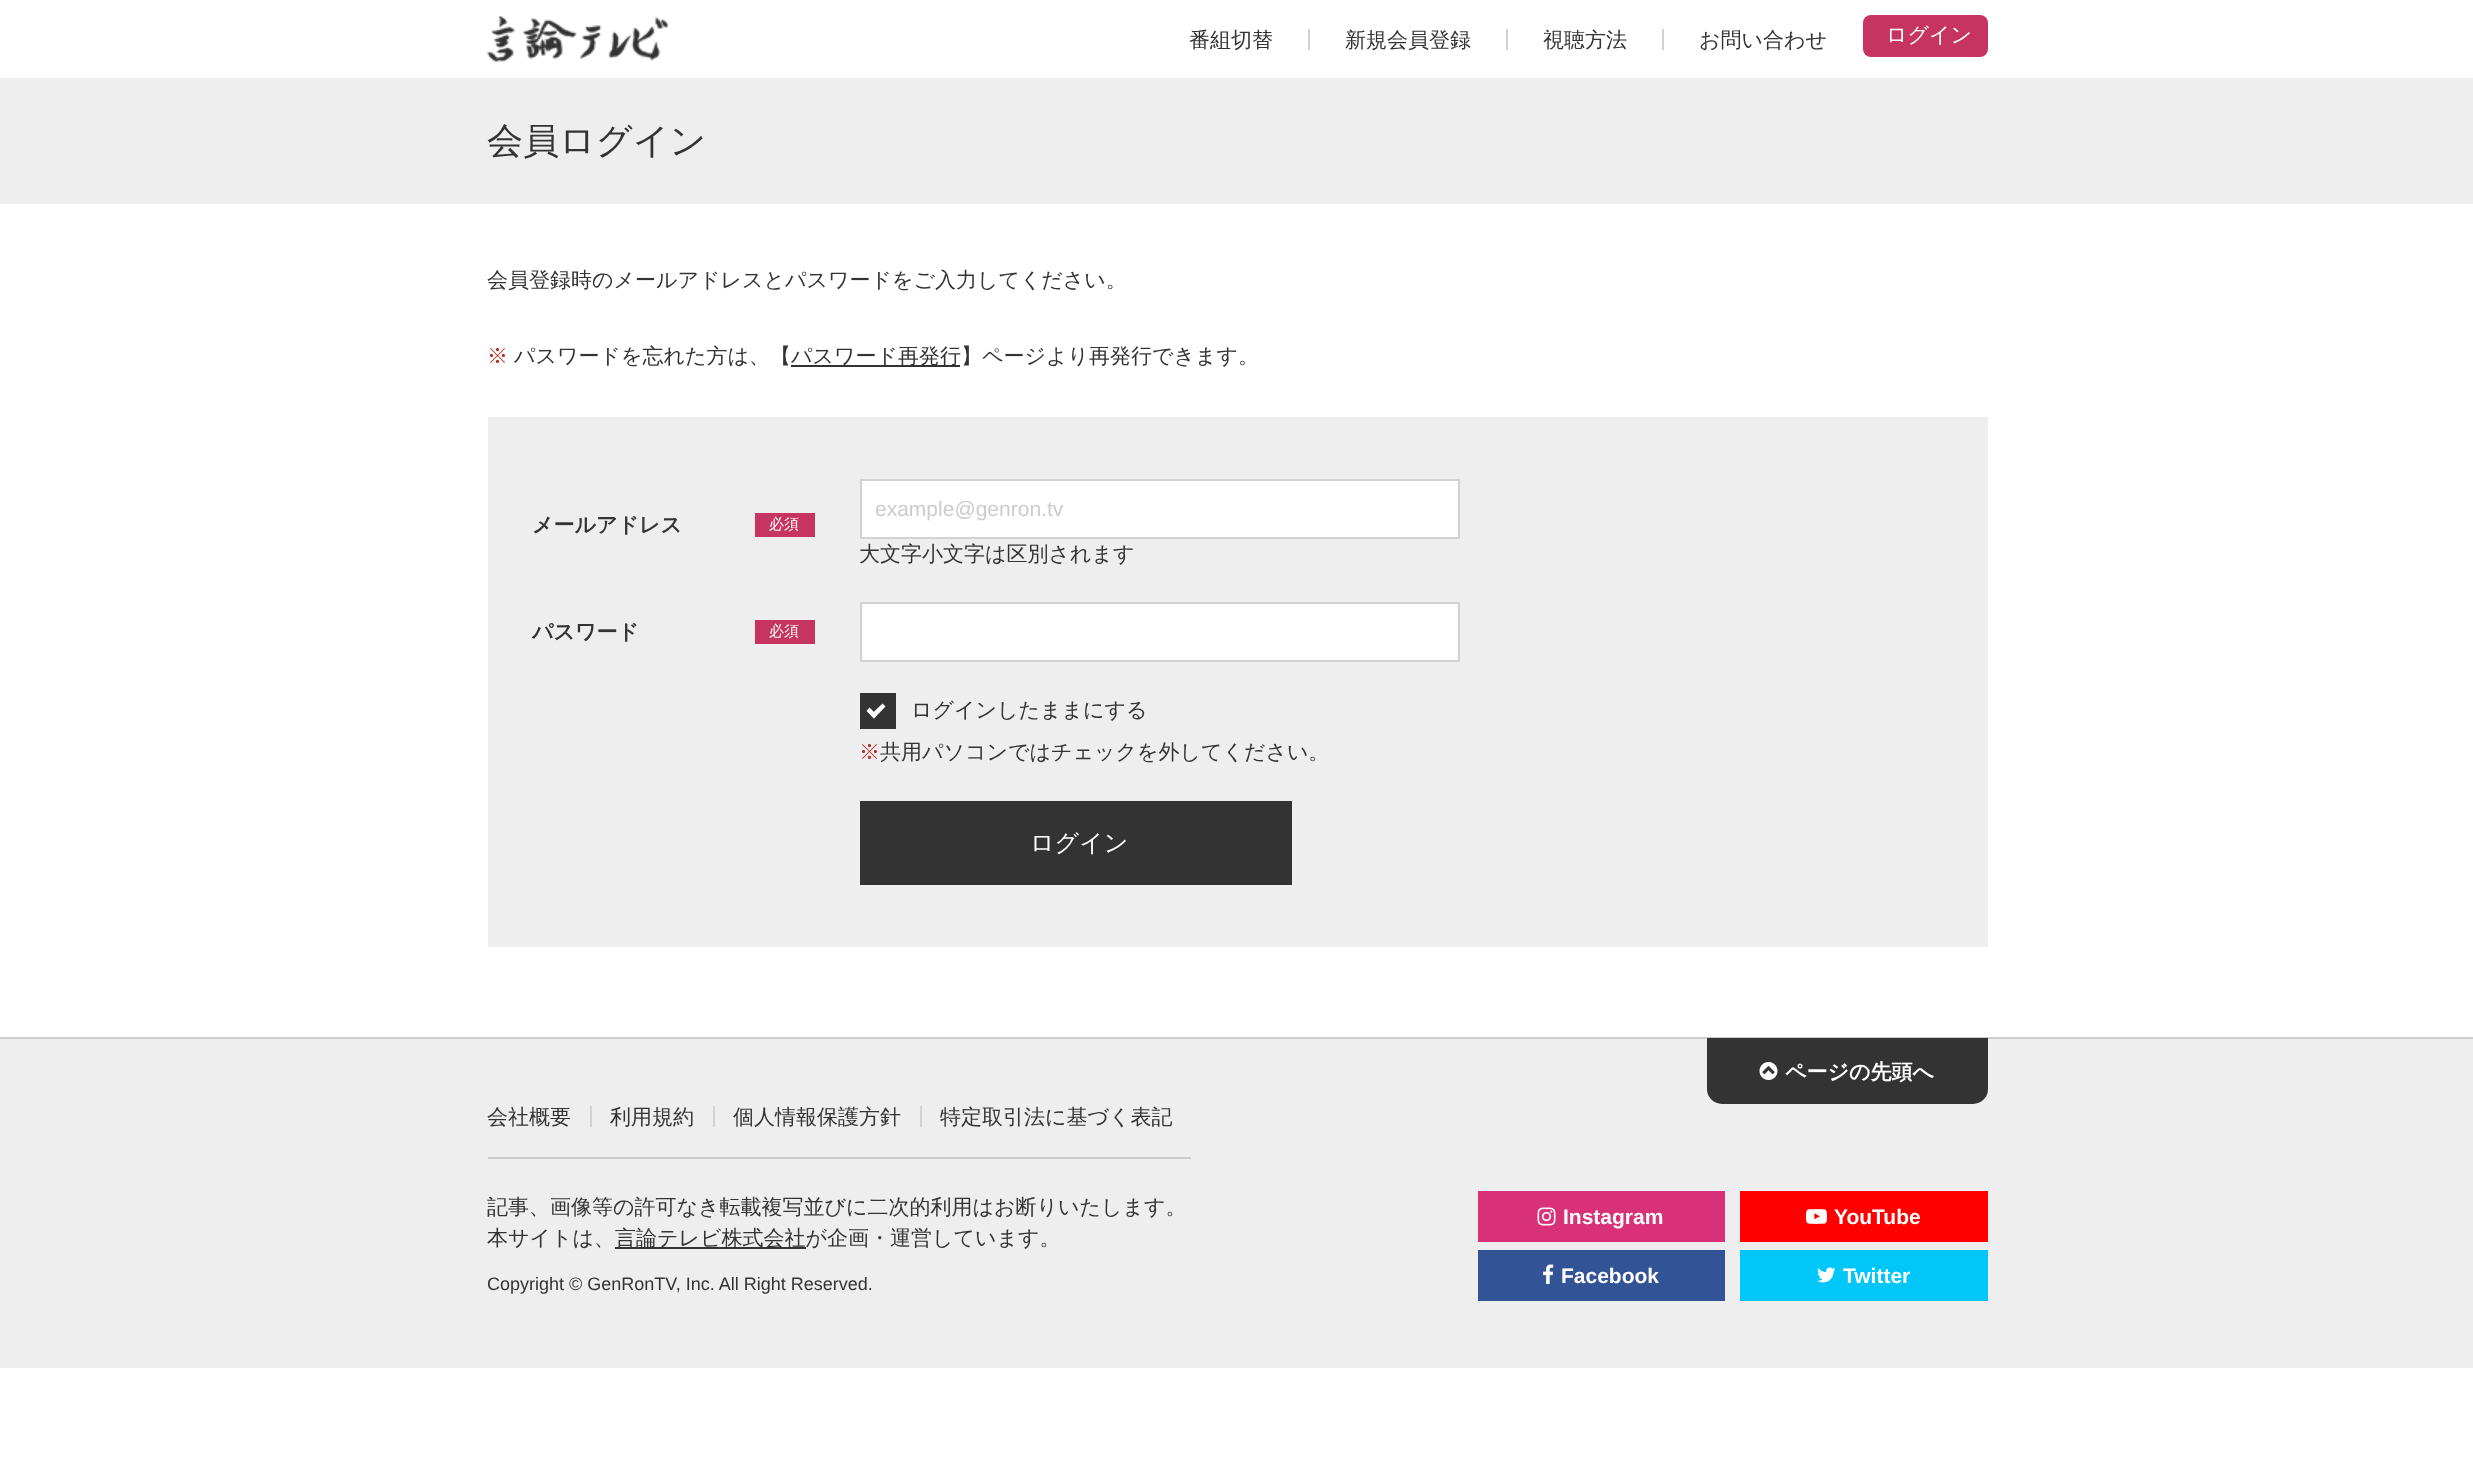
<!DOCTYPE html>
<meta charset="utf-8">
<style>body { margin: 0 } canvas { display: block }</style>
<canvas id="canvas" width="2473" height="1483"></canvas>
<script type="module">
  const canvas = document.getElementById("canvas");
  const g = canvas.getContext("2d");
  g.miterLimit = 4;
  g.fontKerning = "normal";
  function drawText(s, x, y, [font, color]) {
    g.font = font;
    g.fillStyle = color;
    g.fillText(s, x, y);
  }
  function fillBox(x, y, w, h, color) {
    g.fillStyle = color;
    g.fillRect(x, y, w, h);
  }
  function fillRounded(x, y, w, h, r, color) {
    g.fillStyle = color;
    g.beginPath();
    g.roundRect(x, y, w, h, r);
    g.fill();
  }
  async function drawPicture(src, x, y, w, h) {
    const img = new Image();
    img.src = src;
    await img.decode();
    g.drawImage(img, x, y, w, h);
  }

  const s1 = ["500 21px WenQuanYi Zen Hei", "#333333"];
  const s2 = ["500 21px WenQuanYi Zen Hei", "#FFFFFF"];
  const s3 = ["500 36px WenQuanYi Zen Hei", "#333333"];
  const s4 = ["500 21px WenQuanYi Zen Hei", "#B62D26"];
  const s5 = ["bold 21px WenQuanYi Zen Hei", "#333333"];
  const s6 = ["500 15px WenQuanYi Zen Hei", "#FFFFFF"];
  const s7 = ["21px Liberation Sans", "#CCCCCC"];
  const s8 = ["500 24px WenQuanYi Zen Hei", "#FFFFFF"];
  const s9 = ["bold 21px WenQuanYi Zen Hei", "#FFFFFF"];
  const s10 = ["18px Liberation Sans", "#333333"];
  const s11 = ["bold 21px Liberation Sans", "#FFFFFF"];

  fillBox(0, 0, 2473, 1483, "#FFFFFF");
  await drawPicture("pic1.png", 487, 16, 181, 46);
  drawText("番組切替", 1189, 47, s1);
  fillBox(1308, 29, 2, 21, "#D2D2D2");
  drawText("新規会員登録", 1345, 47, s1);
  fillBox(1506, 29, 2, 21, "#D2D2D2");
  drawText("視聴方法", 1543, 47, s1);
  fillBox(1662, 29, 2, 21, "#D2D2D2");
  drawText("お問い合わせ", 1699, 47, s1);
  fillRounded(1863, 15, 125, 42, 8, "#C63461");
  drawText("ログイン", 1886, 42, s2);
  fillBox(0, 78, 2473, 126, "#EEEEEE");
  drawText("会員ログイン", 487, 153, s3);
  drawText("会員登録時のメールアドレスとパスワードをご入力してください。", 487, 287, s1);
  drawText("※", 487, 363, s4);
  drawText("パスワードを忘れた方は、【", 514, 363, s1);
  fillBox(791, 365, 169, 2, "#333333");
  drawText("パスワード再発行】ページより再発行できます。", 791, 363, s1);
  fillBox(488, 417, 1500, 530, "#EEEEEE");
  drawText("メールアドレス", 532, 532, s5);
  fillBox(755, 513, 60, 24, "#C63461");
  drawText("必須", 769, 529, s6);
  g.beginPath();
  g.rect(861, 480, 598, 58);
  g.fill();
  g.strokeStyle = "#D2D2D2";
  g.lineWidth = 2;
  g.stroke();
  drawText("example@genron.tv", 875, 516, s7);
  drawText("大文字小文字は区別されます", 859, 561, s1);
  drawText("パスワード", 532, 639, s5);
  fillBox(755, 620, 60, 24, "#C63461");
  drawText("必須", 769, 636, s6);
  g.beginPath();
  g.rect(861, 603, 598, 58);
  g.fill();
  g.stroke();
  fillBox(860, 693, 36, 36, "#333333");
  drawText("ログインしたままにする", 911, 717, s1);
  g.fillStyle = "#FFFFFF";
  g.beginPath();
  g.moveTo(882.5, 703.5);
  g.lineTo(885.5, 706.5);
  g.lineTo(874, 718.5);
  g.lineTo(870.5, 715);
  g.closePath();
  g.fill();
  g.beginPath();
  g.moveTo(869.5, 707.5);
  g.lineTo(877, 715);
  g.lineTo(874, 718.5);
  g.lineTo(866.5, 711);
  g.closePath();
  g.fill();
  drawText("※", 859, 759, s4);
  drawText("共用パソコンではチェックを外してください。", 880, 759, s1);
  fillBox(860, 801, 432, 84, "#333333");
  drawText("ログイン", 1030, 851, s8);
  fillBox(0, 1039, 2473, 329, "#EEEEEE");
  fillBox(0, 1037, 2473, 2, "#CCCCCC");
  g.fillStyle = "#333333";
  g.beginPath();
  g.roundRect(1707, 1038, 281, 66, [0, 0, 15, 15]);
  g.fill();
  await drawPicture("pic2.png", 1759, 1062, 19, 18);
  drawText("ページの先頭へ", 1785, 1079, s9);
  fillBox(488, 1157, 703, 2, "#CCCCCC");
  drawText("会社概要", 487, 1124, s1);
  fillBox(590, 1106, 2, 21, "#D2D2D2");
  drawText("利用規約", 610, 1124, s1);
  fillBox(713, 1106, 2, 21, "#D2D2D2");
  drawText("個人情報保護方針", 733, 1124, s1);
  fillBox(920, 1106, 2, 21, "#D2D2D2");
  drawText("特定取引法に基づく表記", 940, 1124, s1);
  drawText("記事、画像等の許可なき転載複写並びに二次的利用はお断りいたします。", 487, 1214, s1);
  drawText("本サイトは、", 487, 1245, s1);
  fillBox(615, 1247, 191, 2, "#333333");
  drawText("言論テレビ株式会社が企画・運営しています。", 615, 1245, s1);
  drawText("Copyright © GenRonTV, Inc. All Right Reserved.", 487, 1290, s10);
  fillBox(1478, 1191, 247, 51, "#D93177");
  await drawPicture("pic3.png", 1537, 1207, 19, 19);
  drawText("Instagram", 1563, 1224, s11);
  fillBox(1740, 1191, 248, 51, "#FF0000");
  await drawPicture("pic4.png", 1806, 1209, 21, 15);
  drawText("YouTube", 1834, 1224, s11);
  fillBox(1478, 1250, 247, 51, "#335397");
  await drawPicture("pic5.png", 1543, 1264, 11, 20);
  drawText("Facebook", 1561, 1283, s11);
  fillBox(1740, 1250, 248, 51, "#00C7F7");
  await drawPicture("pic6.png", 1817, 1267, 19, 16);
  drawText("Twitter", 1843, 1283, s11);
</script>
